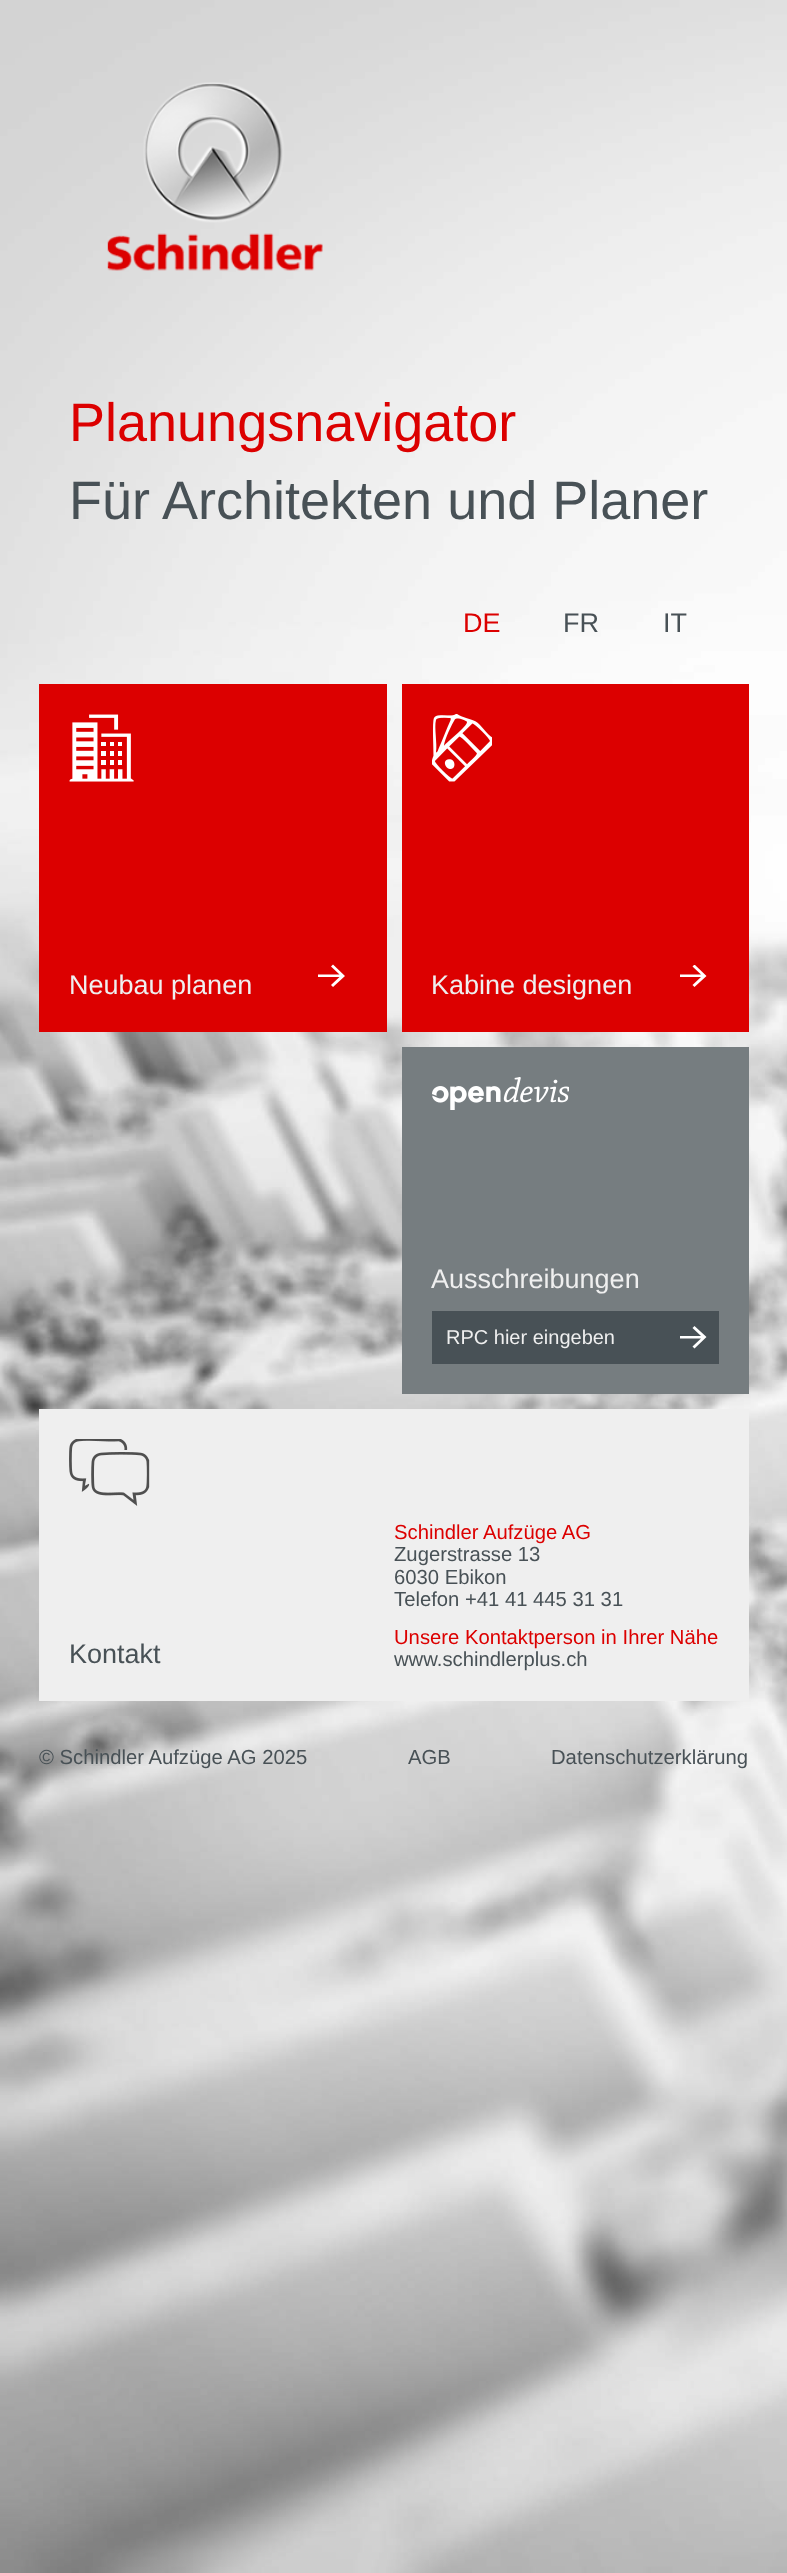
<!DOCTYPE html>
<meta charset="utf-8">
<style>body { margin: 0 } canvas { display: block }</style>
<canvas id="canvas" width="787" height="2573"></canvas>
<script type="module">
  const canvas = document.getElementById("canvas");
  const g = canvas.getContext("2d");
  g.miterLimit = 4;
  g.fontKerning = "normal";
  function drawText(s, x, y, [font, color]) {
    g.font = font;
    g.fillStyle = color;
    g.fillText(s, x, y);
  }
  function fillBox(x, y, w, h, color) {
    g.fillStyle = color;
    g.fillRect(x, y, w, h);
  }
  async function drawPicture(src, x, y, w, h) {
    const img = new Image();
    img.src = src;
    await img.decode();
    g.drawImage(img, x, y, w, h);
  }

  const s1 = ["54px Liberation Sans", "#DC0000"];
  const s2 = ["54px Liberation Sans", "#485156"];
  const s3 = ["27px Liberation Sans", "#DC0000"];
  const s4 = ["27px Liberation Sans", "#485156"];
  const s5 = ["27px Liberation Sans", "#EFEFEF"];
  const s6 = ["20px Liberation Sans", "#EFEFEF"];
  const s7 = ["20.25px Liberation Sans", "#DC0000"];
  const s8 = ["20.25px Liberation Sans", "#485156"];

  fillBox(0, 0, 787, 2573, "#FFFFFF");
  await drawPicture("pic1.png", 0, 0, 787, 2573);
  await drawPicture("pic2.png", 107, 82, 216, 189);
  drawText("Planungsnavigator", 69, 441, s1);
  drawText("Für Architekten und Planer", 69, 519, s2);
  drawText("DE", 463, 632, s3);
  drawText("FR", 563, 632, s4);
  drawText("IT", 663, 632, s4);
  fillBox(39, 684, 348, 348, "#DC0000");
  await drawPicture("pic3.png", 69, 714, 65, 68);
  drawText("Neubau planen", 69, 994, s5);
  g.fillStyle = "#FFFFFF";
  g.beginPath();
  g.moveTo(333, 964.5);
  g.lineTo(331, 966.5);
  g.lineTo(339.5, 974.5);
  g.lineTo(318, 974.5);
  g.lineTo(318, 977);
  g.lineTo(339.5, 977);
  g.lineTo(331, 985);
  g.lineTo(333, 987);
  g.lineTo(345, 976);
  g.closePath();
  g.fill();
  fillBox(402, 684, 347, 348, "#DC0000");
  await drawPicture("pic4.png", 432, 714, 60, 68);
  drawText("Kabine designen", 431, 994, s5);
  g.save();
  g.beginPath();
  g.rect(680, 965, 27, 22);
  g.clip();
  g.fillStyle = "#FFFFFF";
  g.beginPath();
  g.moveTo(694.5, 964.5);
  g.lineTo(692.5, 966.5);
  g.lineTo(701, 974.5);
  g.lineTo(679.5, 974.5);
  g.lineTo(679.5, 977);
  g.lineTo(701, 977);
  g.lineTo(692.5, 985);
  g.lineTo(694.5, 987);
  g.lineTo(706.5, 976);
  g.closePath();
  g.fill();
  g.restore();
  fillBox(402, 1047, 347, 347, "#767D80");
  await drawPicture("pic5.png", 432, 1077, 137, 33);
  drawText("Ausschreibungen", 431, 1288, s5);
  fillBox(432, 1311, 287, 53, "#485156");
  drawText("RPC hier eingeben", 446, 1344, s6);
  g.save();
  g.beginPath();
  g.rect(680, 1326, 27, 23);
  g.clip();
  g.fillStyle = "#FFFFFF";
  g.beginPath();
  g.moveTo(694.5, 1326);
  g.lineTo(692.5, 1328);
  g.lineTo(701, 1336);
  g.lineTo(679.5, 1336);
  g.lineTo(679.5, 1338.5);
  g.lineTo(701, 1338.5);
  g.lineTo(692.5, 1346.5);
  g.lineTo(694.5, 1348.5);
  g.lineTo(706.5, 1337);
  g.closePath();
  g.fill();
  g.restore();
  fillBox(39, 1409, 710, 292, "#EFEFEF");
  await drawPicture("pic6.png", 69, 1439, 81, 67);
  drawText("Kontakt", 69, 1663, s4);
  drawText("Schindler Aufzüge AG", 394, 1539, s7);
  drawText("Zugerstrasse 13", 394, 1561, s8);
  drawText("6030 Ebikon", 394, 1584, s8);
  drawText("Telefon +41 41 445 31 31", 394, 1606, s8);
  drawText("Unsere Kontaktperson in Ihrer Nähe", 394, 1644, s7);
  drawText("www.schindlerplus.ch", 394, 1666, s8);
  drawText("© Schindler Aufzüge AG 2025", 39, 1764, s8);
  drawText("AGB", 408, 1764, s8);
  drawText("Datenschutzerklärung", 551, 1764, s8);
</script>
